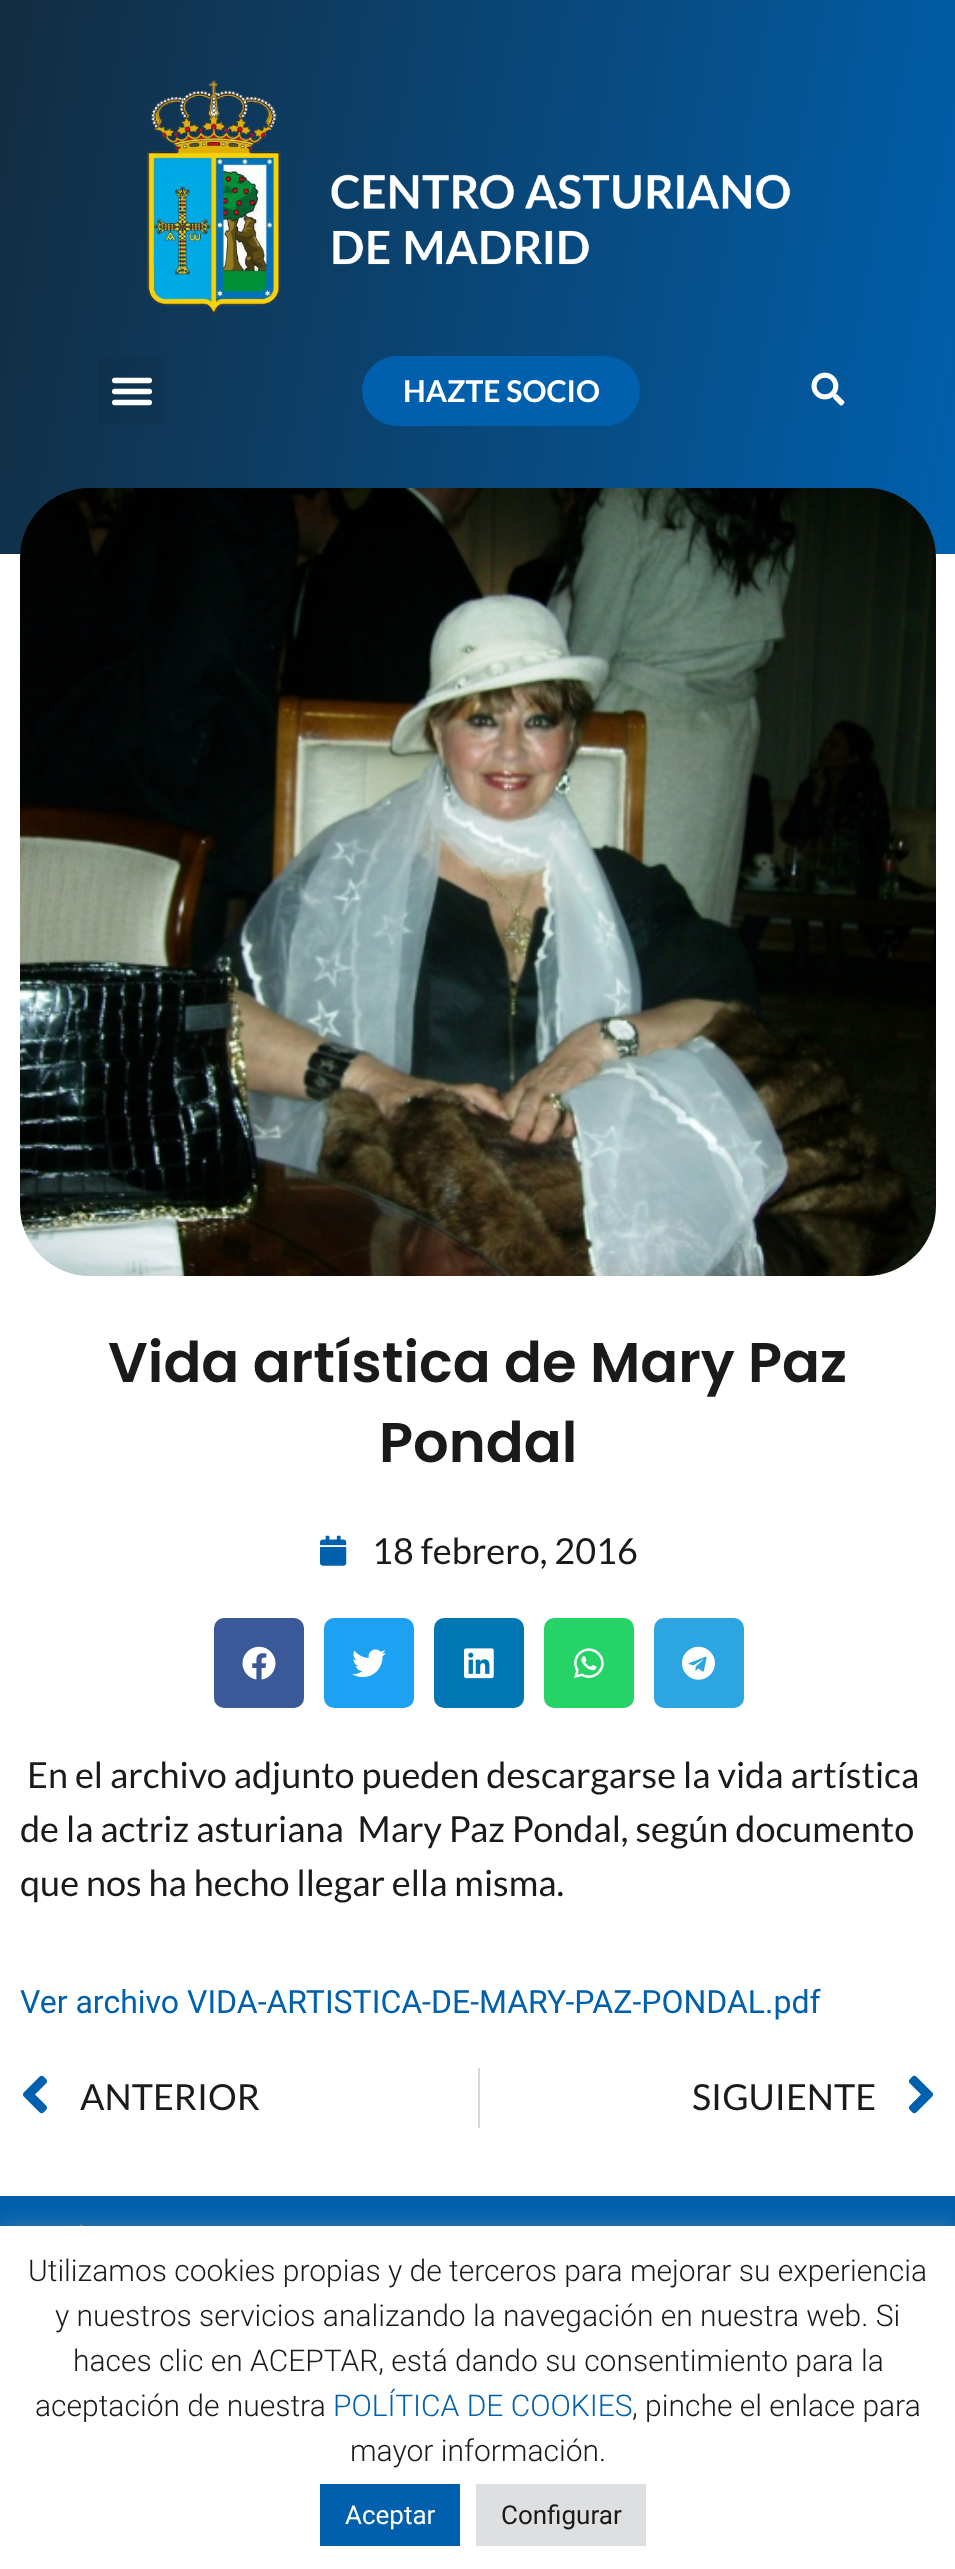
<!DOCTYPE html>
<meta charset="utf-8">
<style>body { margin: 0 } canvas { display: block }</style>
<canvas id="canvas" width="955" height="2569"></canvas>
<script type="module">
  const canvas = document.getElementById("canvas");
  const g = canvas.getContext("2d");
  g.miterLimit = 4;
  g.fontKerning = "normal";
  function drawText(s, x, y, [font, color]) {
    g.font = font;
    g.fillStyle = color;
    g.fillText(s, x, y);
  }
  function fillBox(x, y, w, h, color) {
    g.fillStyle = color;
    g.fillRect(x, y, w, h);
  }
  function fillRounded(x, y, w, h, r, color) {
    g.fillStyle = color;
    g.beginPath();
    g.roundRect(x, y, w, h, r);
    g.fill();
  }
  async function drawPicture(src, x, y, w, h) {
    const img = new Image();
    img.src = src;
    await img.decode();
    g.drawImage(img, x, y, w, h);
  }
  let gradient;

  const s1 = ["bold 30px Lato", "#FFFFFF"];
  const s2 = ["600 56px Poppins", "#1A1A1A"];
  const s3 = ["36px Lato", "#1A1A1A"];
  const s4 = ["32px Roboto", "#0060AD"];
  const s5 = ["300 30px Roboto", "#1A1A1A"];
  const s6 = ["300 30px Roboto", "#0060AD"];
  const s7 = ["26px Roboto", "#FFFFFF"];
  const s8 = ["26px Roboto", "#1A1A1A"];

  fillBox(0, 0, 955, 2569, "#FFFFFF");
  gradient = g.createLinearGradient(-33, 187, 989, 367);
  gradient.addColorStop(0, "#132C40");
  gradient.addColorStop(1, "#0060AD");
  g.fillStyle = gradient;
  g.fillRect(0, 0, 955, 554);
  await drawPicture("pic1.png", 147, 80, 644, 236);
  fillBox(98, 358, 66, 66, "rgba(0, 0, 0, 0.05)");
  await drawPicture("pic2.png", 111, 377, 42, 29);
  fillRounded(362, 356, 278, 70, 35, "#0060AD");
  drawText("HAZTE SOCIO", 403, 402, s1);
  await drawPicture("pic3.png", 811, 372, 34, 34);
  await drawPicture("pic4.png", 20, 488, 916, 788);
  drawText("Vida artística de Mary Paz", 108, 1382, s2);
  drawText("Pondal", 379, 1462, s2);
  await drawPicture("pic5.png", 320, 1535, 27, 31);
  drawText("18 febrero, 2016", 372, 1564, s3);
  fillRounded(214, 1618, 90, 90, 10, "#3B5998");
  await drawPicture("pic6.png", 242, 1646, 34, 34);
  fillRounded(324, 1618, 90, 90, 10, "#1DA1F2");
  await drawPicture("pic7.png", 352, 1649, 34, 29);
  fillRounded(434, 1618, 90, 90, 10, "#0077B5");
  await drawPicture("pic8.png", 464, 1648, 30, 31);
  fillRounded(544, 1618, 90, 90, 10, "#25D366");
  await drawPicture("pic9.png", 574, 1648, 30, 31);
  fillRounded(654, 1618, 90, 90, 10, "#2CA5E0");
  await drawPicture("pic10.png", 682, 1646, 33, 34);
  drawText("En el archivo adjunto pueden descargarse la vida artística", 27, 1788, s3);
  drawText("de la actriz asturiana  Mary Paz Pondal, según documento", 20, 1842, s3);
  drawText("que nos ha hecho llegar ella misma.", 20, 1896, s3);
  drawText("Ver archivo VIDA-ARTISTICA-DE-MARY-PAZ-PONDAL.pdf", 20, 2013, s4);
  await drawPicture("pic11.png", 22, 2075, 26, 39);
  drawText("ANTERIOR", 80, 2110, s3);
  fillBox(478, 2068, 2, 60, "#D5D8DC");
  drawText("SIGUIENTE", 692, 2110, s3);
  await drawPicture("pic12.png", 908, 2075, 26, 39);
  fillBox(0, 2196, 955, 30, "#0060AD");
  await drawPicture("pic13.png", 79, 2224, 5, 2);
  g.fillStyle = "rgba(172, 171, 171, 0.3)";
  g.filter = "blur(10px)";
  g.beginPath();
  g.rect(0, 2224, 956, 344);
  g.fill();
  g.filter = "none";
  fillBox(0, 2226, 955, 343, "#FFFFFF");
  drawText("Utilizamos cookies propias y de terceros para mejorar su experiencia", 28, 2281, s5);
  drawText("y nuestros servicios analizando la navegación en nuestra web. Si", 55, 2326, s5);
  drawText("haces clic en ACEPTAR, está dando su consentimiento para la", 73, 2371, s5);
  drawText("aceptación de nuestra", 35, 2416, s5);
  drawText("POLÍTICA DE COOKIES", 333, 2416, s6);
  drawText(", pinche el enlace para", 632, 2416, s5);
  drawText("mayor información.", 350, 2461, s5);
  fillBox(320, 2484, 140, 62, "#0060AD");
  drawText("Aceptar", 345, 2524, s7);
  fillBox(476, 2484, 170, 62, "#DEDFE0");
  drawText("Configurar", 501, 2524, s8);
</script>
